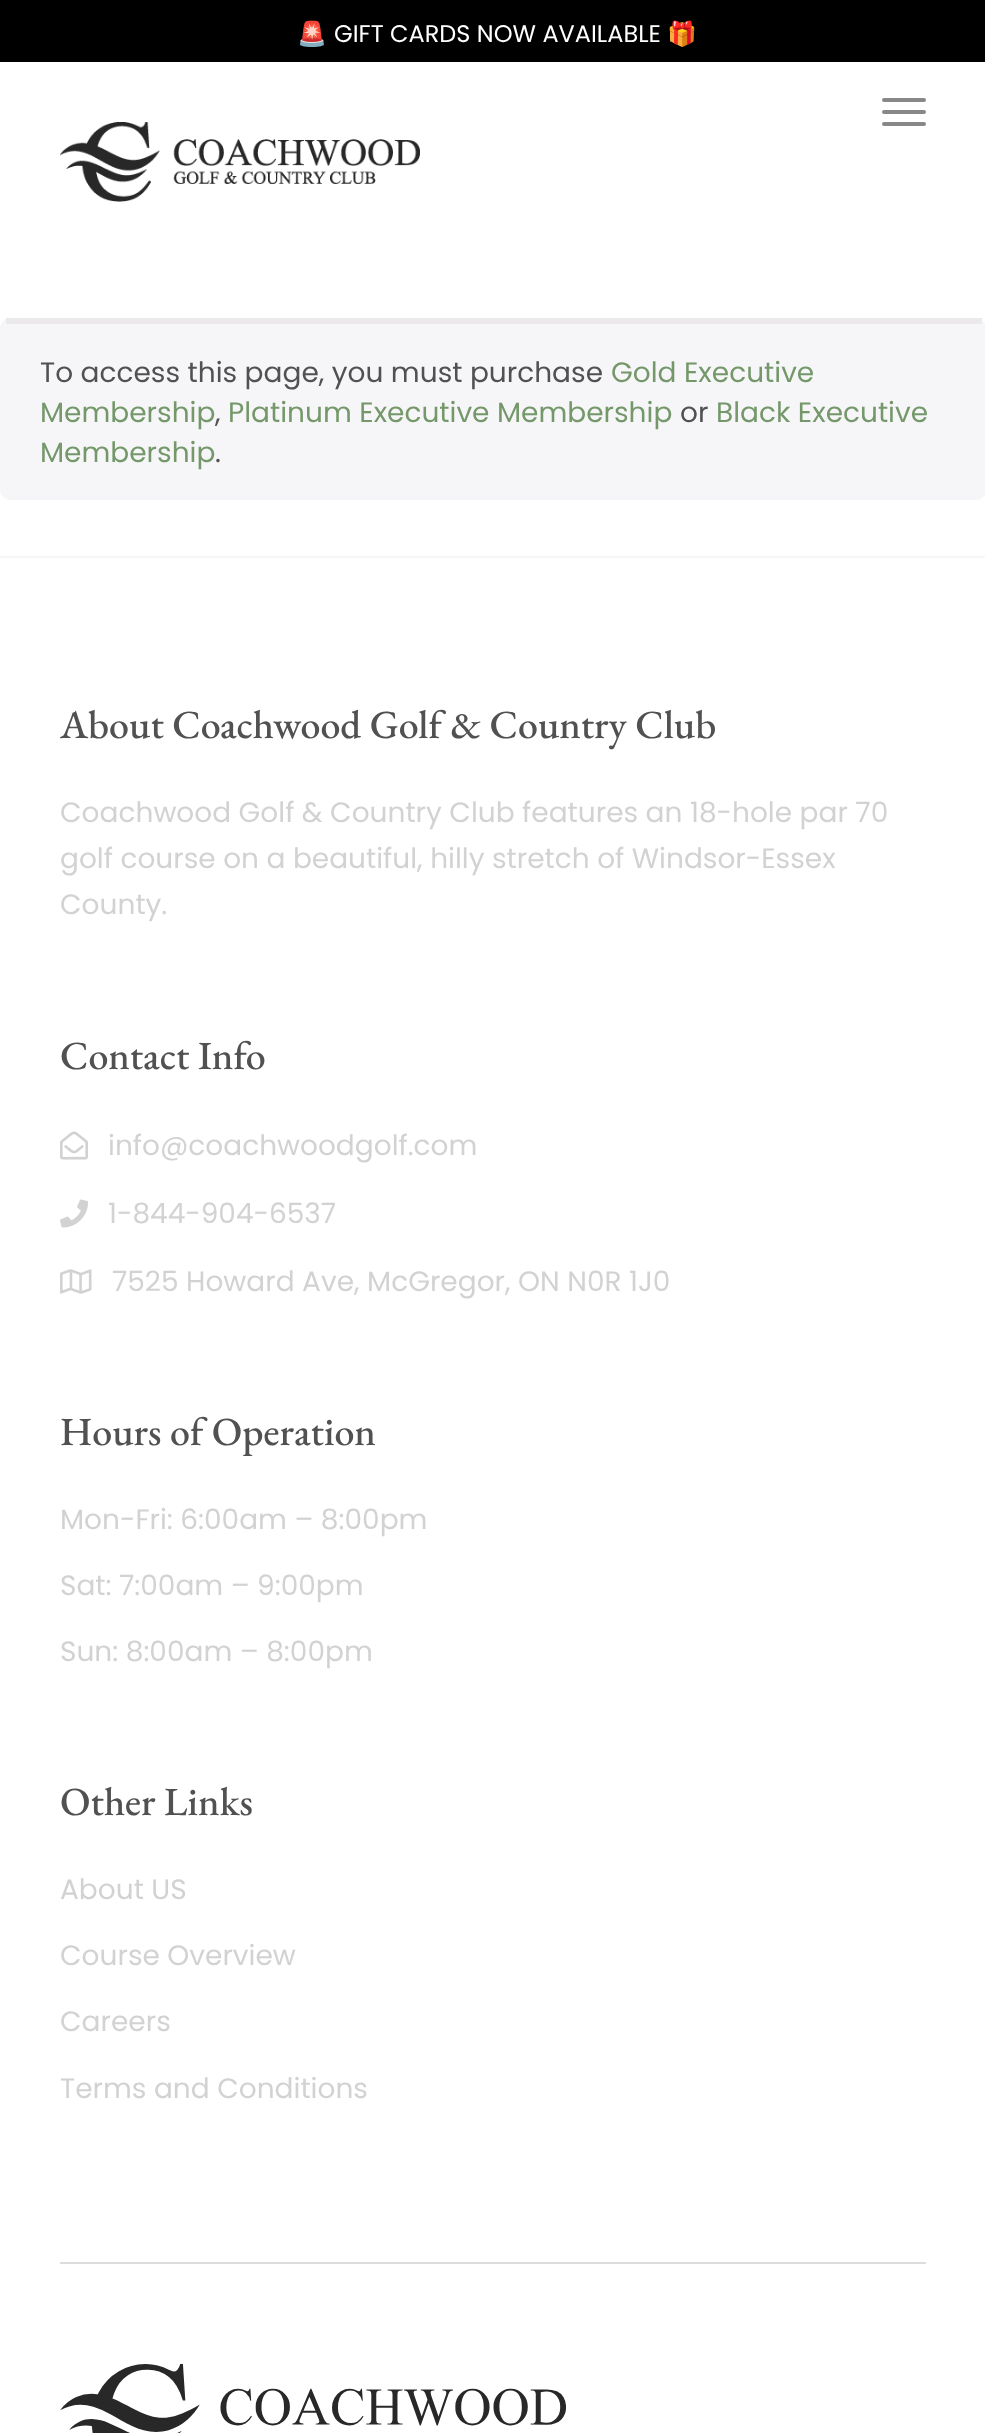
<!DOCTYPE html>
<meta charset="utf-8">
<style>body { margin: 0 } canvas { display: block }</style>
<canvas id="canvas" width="985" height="2433"></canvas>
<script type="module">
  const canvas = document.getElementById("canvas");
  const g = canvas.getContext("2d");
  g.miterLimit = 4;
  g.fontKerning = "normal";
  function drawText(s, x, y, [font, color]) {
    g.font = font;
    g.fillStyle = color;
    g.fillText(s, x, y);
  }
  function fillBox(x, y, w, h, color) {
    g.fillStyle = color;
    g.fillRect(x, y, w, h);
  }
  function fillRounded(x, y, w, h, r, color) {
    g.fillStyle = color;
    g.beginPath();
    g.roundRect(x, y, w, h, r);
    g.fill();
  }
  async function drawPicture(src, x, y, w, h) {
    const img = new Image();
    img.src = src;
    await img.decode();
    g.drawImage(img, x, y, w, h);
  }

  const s1 = ["24px Noto Color Emoji", "#FFFFFF"];
  const s2 = ["24px Poppins", "#FFFFFF"];
  const s3 = ["28px Poppins", "#515151"];
  const s4 = ["28px Poppins", "#74986A"];
  const s5 = ["500 40px EB Garamond", "#515151"];
  const s6 = ["28px Poppins", "#D2D2D2"];

  fillBox(0, 0, 985, 2433, "#FFFFFF");
  fillBox(0, 0, 985, 62, "#000000");
  drawText("🚨", 297, 42, s1);
  drawText("GIFT CARDS NOW AVAILABLE", 334, 42, s2);
  drawText("🎁", 667, 42, s1);
  fillRounded(882, 98, 44, 4, 2, "#888888");
  fillRounded(882, 110, 44, 4, 2, "#888888");
  fillRounded(882, 122, 44, 4, 2, "#888888");
  await drawPicture("pic1.png", 60, 122, 360, 80);
  fillRounded(0, 318, 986, 182, 10, "#F6F5F8");
  fillBox(6, 318, 976, 6, "#EBE9EB");
  drawText("To access this page, you must purchase", 40, 382, s3);
  drawText("Gold Executive", 611, 382, s4);
  drawText("Membership", 40, 422, s4);
  drawText(",", 215, 422, s3);
  drawText("Platinum Executive Membership", 228, 422, s4);
  drawText("or", 680, 422, s3);
  drawText("Black Executive", 716, 422, s4);
  drawText("Membership", 40, 462, s4);
  drawText(".", 215, 462, s3);
  fillBox(0, 556, 985, 2, "#F6F6F6");
  drawText("About Coachwood Golf & Country Club", 60, 738, s5);
  drawText("Coachwood Golf & Country Club features an 18-hole par 70", 60, 822, s6);
  drawText("golf course on a beautiful, hilly stretch of Windsor-Essex", 60, 868, s6);
  drawText("County.", 60, 914, s6);
  drawText("Contact Info", 60, 1069, s5);
  await drawPicture("pic2.png", 60, 1131, 28, 29);
  drawText("info@coachwoodgolf.com", 108, 1155, s6);
  await drawPicture("pic3.png", 60, 1199, 28, 29);
  drawText("1-844-904-6537", 108, 1223, s6);
  await drawPicture("pic4.png", 60, 1269, 32, 25);
  drawText("7525 Howard Ave, McGregor, ON N0R 1J0", 112, 1291, s6);
  drawText("Hours of Operation", 60, 1445, s5);
  drawText("Mon-Fri: 6:00am – 8:00pm", 60, 1529, s6);
  drawText("Sat: 7:00am – 9:00pm", 60, 1595, s6);
  drawText("Sun: 8:00am – 8:00pm", 60, 1661, s6);
  drawText("Other Links", 60, 1815, s5);
  drawText("About US", 60, 1899, s6);
  drawText("Course Overview", 60, 1965, s6);
  drawText("Careers", 60, 2031, s6);
  drawText("Terms and Conditions", 60, 2098, s6);
  fillBox(60, 2262, 866, 2, "#DCDCDC");
  await drawPicture("pic5.png", 60, 2364, 506, 69);
</script>
